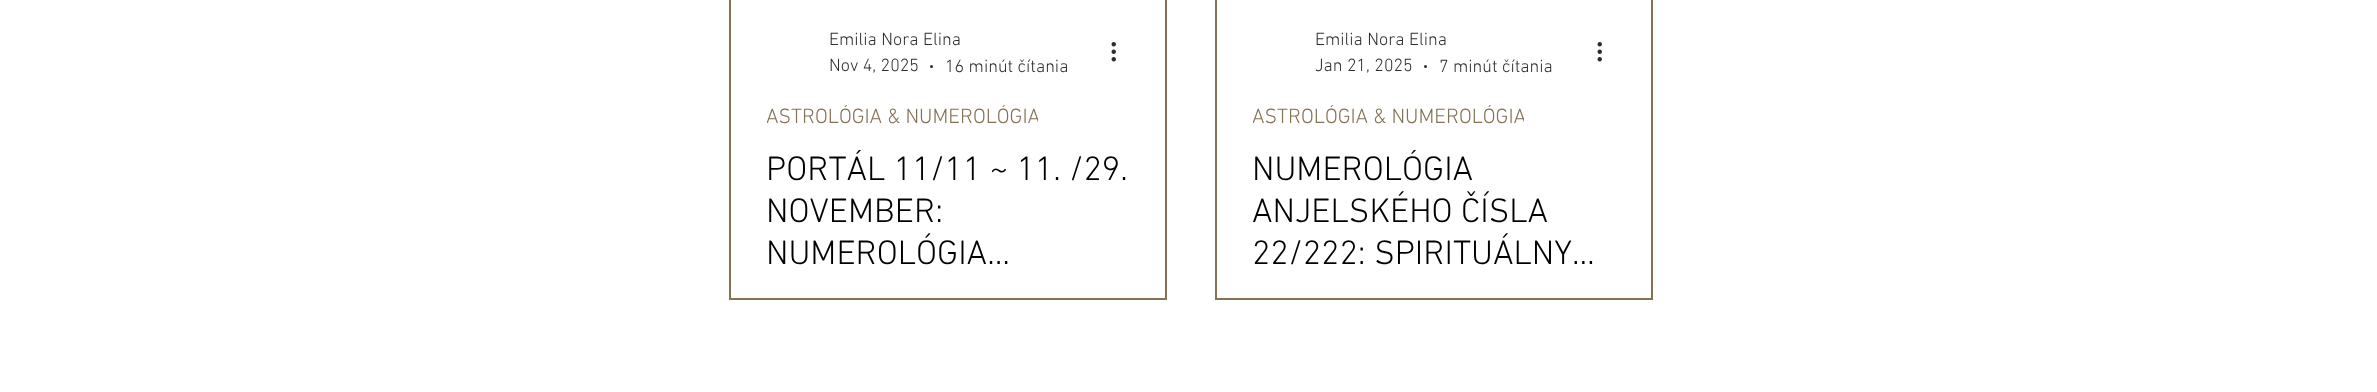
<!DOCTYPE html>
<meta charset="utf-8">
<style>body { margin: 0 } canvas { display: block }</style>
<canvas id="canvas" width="2377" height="392"></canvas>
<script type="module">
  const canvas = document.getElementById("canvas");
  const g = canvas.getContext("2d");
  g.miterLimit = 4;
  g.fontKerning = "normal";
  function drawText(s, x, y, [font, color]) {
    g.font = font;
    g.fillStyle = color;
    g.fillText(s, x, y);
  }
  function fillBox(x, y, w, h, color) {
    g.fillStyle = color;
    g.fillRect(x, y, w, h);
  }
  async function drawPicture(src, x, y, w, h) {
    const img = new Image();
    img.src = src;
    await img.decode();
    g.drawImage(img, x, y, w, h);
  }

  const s1 = ["300 18px 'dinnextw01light'", "#2F2E2E"];
  const s2 = ["300 21px 'dinnextw01light'", "#857154"];
  const s3 = ["300 34.5px 'dinnextw01light'", "#000000"];

  fillBox(0, 0, 2377, 392, "#FFFFFF");
  g.strokeStyle = "#857154";
  g.lineWidth = 2;
  g.strokeRect(730, -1, 436, 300);
  drawText("Emilia Nora Elina", 829, 45, s1);
  drawText("Nov 4, 2025", 829, 71, s1);
  g.beginPath();
  g.arc(931.5, 66.5, 1.5, 0, Math.PI * 2);
  g.fill();
  drawText("16 minút čítania", 945, 72, s1);
  await drawPicture("pic1.png", 1111, 42, 5, 20);
  g.save();
  g.beginPath();
  g.rect(767, 105, 271, 26);
  g.clip();
  drawText("ASTROLÓGIA & NUMEROLÓGIA", 766, 123, s2);
  g.restore();
  g.save();
  g.beginPath();
  g.rect(767, 150, 363, 116);
  g.clip();
  drawText("PORTÁL 11/11 ~ 11. /29.", 766, 180, s3);
  g.restore();
  drawText("NOVEMBER:", 766, 222, s3);
  drawText("NUMEROLÓGIA…", 766, 264, s3);
  g.strokeRect(1216, -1, 436, 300);
  drawText("Emilia Nora Elina", 1315, 45, s1);
  drawText("Jan 21, 2025", 1315, 71, s1);
  g.beginPath();
  g.arc(1425.5, 66.5, 1.5, 0, Math.PI * 2);
  g.fill();
  drawText("7 minút čítania", 1439, 72, s1);
  await drawPicture("pic1.png", 1597, 42, 5, 20);
  g.save();
  g.beginPath();
  g.rect(1253, 105, 271, 26);
  g.clip();
  drawText("ASTROLÓGIA & NUMEROLÓGIA", 1252, 123, s2);
  g.restore();
  g.save();
  g.beginPath();
  g.rect(1253, 150, 363, 116);
  g.clip();
  drawText("NUMEROLÓGIA", 1252, 180, s3);
  g.restore();
  drawText("ANJELSKÉHO ČÍSLA", 1252, 222, s3);
  drawText("22/222: SPIRITUÁLNY…", 1252, 264, s3);
</script>
